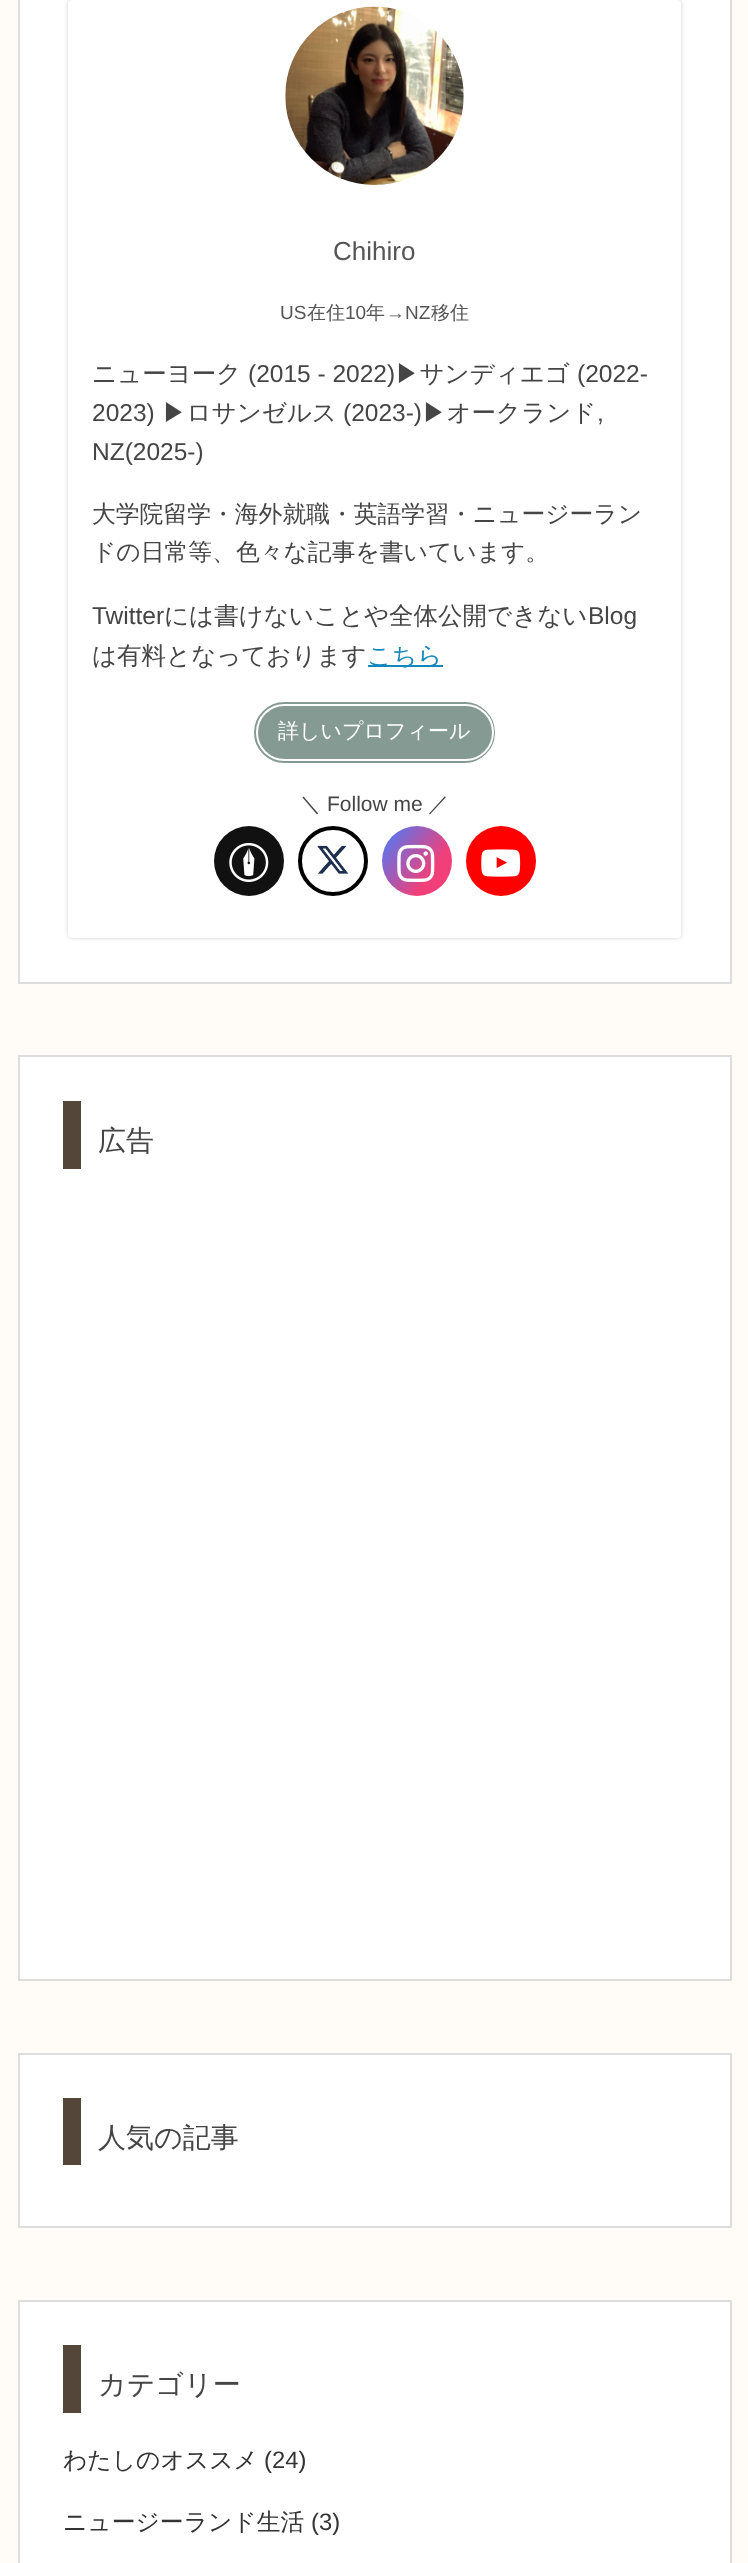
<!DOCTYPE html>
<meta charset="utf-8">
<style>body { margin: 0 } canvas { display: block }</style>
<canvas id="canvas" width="748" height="2563"></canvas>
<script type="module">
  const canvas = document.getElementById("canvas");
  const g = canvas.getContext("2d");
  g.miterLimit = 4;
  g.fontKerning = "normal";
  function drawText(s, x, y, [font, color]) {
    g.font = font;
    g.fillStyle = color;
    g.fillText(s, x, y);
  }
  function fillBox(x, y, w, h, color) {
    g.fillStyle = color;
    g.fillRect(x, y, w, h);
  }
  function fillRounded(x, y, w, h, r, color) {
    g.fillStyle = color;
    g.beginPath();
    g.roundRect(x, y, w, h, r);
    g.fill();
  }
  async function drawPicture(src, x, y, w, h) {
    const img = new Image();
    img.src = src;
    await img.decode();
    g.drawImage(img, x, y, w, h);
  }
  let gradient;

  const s1 = ["26px Liberation Sans", "#555555"];
  const s2 = ["19px Liberation Sans", "#555555"];
  const s3 = ["500 19px WenQuanYi Zen Hei", "#555555"];
  const s4 = ["500 24.5px WenQuanYi Zen Hei", "#454545"];
  const s5 = ["24.5px Liberation Sans", "#454545"];
  const s6 = ["500 23.8px WenQuanYi Zen Hei", "#454545"];
  const s7 = ["500 24.5px WenQuanYi Zen Hei", "#1487BD"];
  const s8 = ["500 21px WenQuanYi Zen Hei", "#FFFFFF"];
  const s9 = ["500 21px WenQuanYi Zen Hei", "#454545"];
  const s10 = ["21px Liberation Sans", "#454545"];
  const s11 = ["500 28px WenQuanYi Zen Hei", "#454545"];
  const s12 = ["500 23.8px WenQuanYi Zen Hei", "#333333"];
  const s13 = ["23.8px Liberation Sans", "#333333"];

  fillBox(0, 0, 748, 2563, "#FFFCF7");
  g.fillStyle = "#FFFFFF";
  g.beginPath();
  g.rect(19, -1, 712, 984);
  g.fill();
  g.strokeStyle = "#DDDDDD";
  g.lineWidth = 2;
  g.stroke();
  g.fillStyle = "rgba(0, 0, 0, 0.18)";
  g.filter = "blur(2px)";
  g.beginPath();
  g.roundRect(68, 0, 613, 938, 4);
  g.fill();
  g.filter = "none";
  fillRounded(68, 0, 613, 938, 4, "#FFFFFF");
  await drawPicture("pic1.png", 285, 6, 179, 179);
  drawText("Chihiro", 333, 260, s1);
  drawText("US", 280, 319, s2);
  drawText("在住", 307, 319, s3);
  drawText("10", 345, 319, s2);
  drawText("年", 366, 319, s3);
  drawText("→NZ", 386, 319, s2);
  drawText("移住", 431, 319, s3);
  drawText("ニューヨーク", 92, 382, s4);
  drawText("(2015 - 2022)", 248, 382, s5);
  drawText("▶サンディエゴ", 395, 382, s4);
  drawText("(2022-", 577, 382, s5);
  drawText("2023)", 92, 421, s5);
  drawText("▶ロサンゼルス", 162, 421, s4);
  drawText("(2023-)", 343, 421, s5);
  drawText("▶︎オークランド", 422, 421, s4);
  drawText(",", 597, 421, s5);
  drawText("NZ(2025-)", 92, 460, s5);
  drawText("大学院留学・海外就職・英語学習・ニュージーラン", 92, 522, s6);
  drawText("ドの日常等、色々な記事を書いています。", 92, 560, s6);
  drawText("Twitter", 92, 624, s5);
  drawText("には書けないことや全体公開できない", 164, 624, s4);
  drawText("Blog", 588, 624, s5);
  drawText("は有料となっております", 92, 664, s4);
  fillBox(368, 665, 75, 2, "#1487BD");
  drawText("こちら", 367, 664, s7);
  g.fillStyle = "#859A93";
  g.beginPath();
  g.roundRect(253, 701, 243, 63, 31.5);
  g.fill();
  g.strokeStyle = "#FFFFFF";
  g.stroke();
  g.beginPath();
  g.roundRect(257, 705, 236, 55, 27.5);
  g.stroke();
  drawText("詳しいプロフィール", 278, 738, s8);
  drawText("＼", 300, 811, s9);
  drawText("Follow me", 327, 811, s10);
  drawText("／", 428, 811, s9);
  g.fillStyle = "#111111";
  g.beginPath();
  g.arc(249, 861, 35, 0, Math.PI * 2);
  g.fill();
  await drawPicture("pic2.png", 229, 842, 40, 40);
  g.beginPath();
  g.arc(333, 861, 33, 0, Math.PI * 2);
  g.strokeStyle = "#000000";
  g.lineWidth = 4;
  g.stroke();
  await drawPicture("pic3.png", 317, 845, 32, 29);
  gradient = g.createLinearGradient(377, 833, 456, 889);
  gradient.addColorStop(0, "#427EFF");
  gradient.addColorStop(0.7, "#F13F79");
  g.fillStyle = gradient;
  g.beginPath();
  g.arc(417, 861, 35, 0, Math.PI * 2);
  g.fill();
  await drawPicture("pic4.png", 397, 844, 38, 38);
  g.fillStyle = "#FF0000";
  g.beginPath();
  g.arc(501, 861, 35, 0, Math.PI * 2);
  g.fill();
  await drawPicture("pic5.png", 481, 849, 40, 28);
  g.fillStyle = "#FFFFFF";
  g.beginPath();
  g.rect(19, 1056, 712, 924);
  g.fill();
  g.strokeStyle = "#DDDDDD";
  g.lineWidth = 2;
  g.stroke();
  fillBox(63, 1101, 18, 68, "#544739");
  drawText("広告", 98, 1150, s11);
  g.fillStyle = "#FFFFFF";
  g.beginPath();
  g.rect(19, 2054, 712, 173);
  g.fill();
  g.stroke();
  fillBox(63, 2098, 18, 67, "#544739");
  drawText("人気の記事", 98, 2147, s11);
  g.fillStyle = "#FFFFFF";
  g.beginPath();
  g.rect(19, 2301, 712, 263);
  g.fill();
  g.stroke();
  fillBox(63, 2345, 18, 68, "#544739");
  drawText("カテゴリー", 98, 2394, s11);
  drawText("わたしのオススメ", 63, 2468, s12);
  drawText("(24)", 264, 2468, s13);
  drawText("ニュージーランド生活", 63, 2530, s12);
  drawText("(3)", 311, 2530, s13);
</script>
